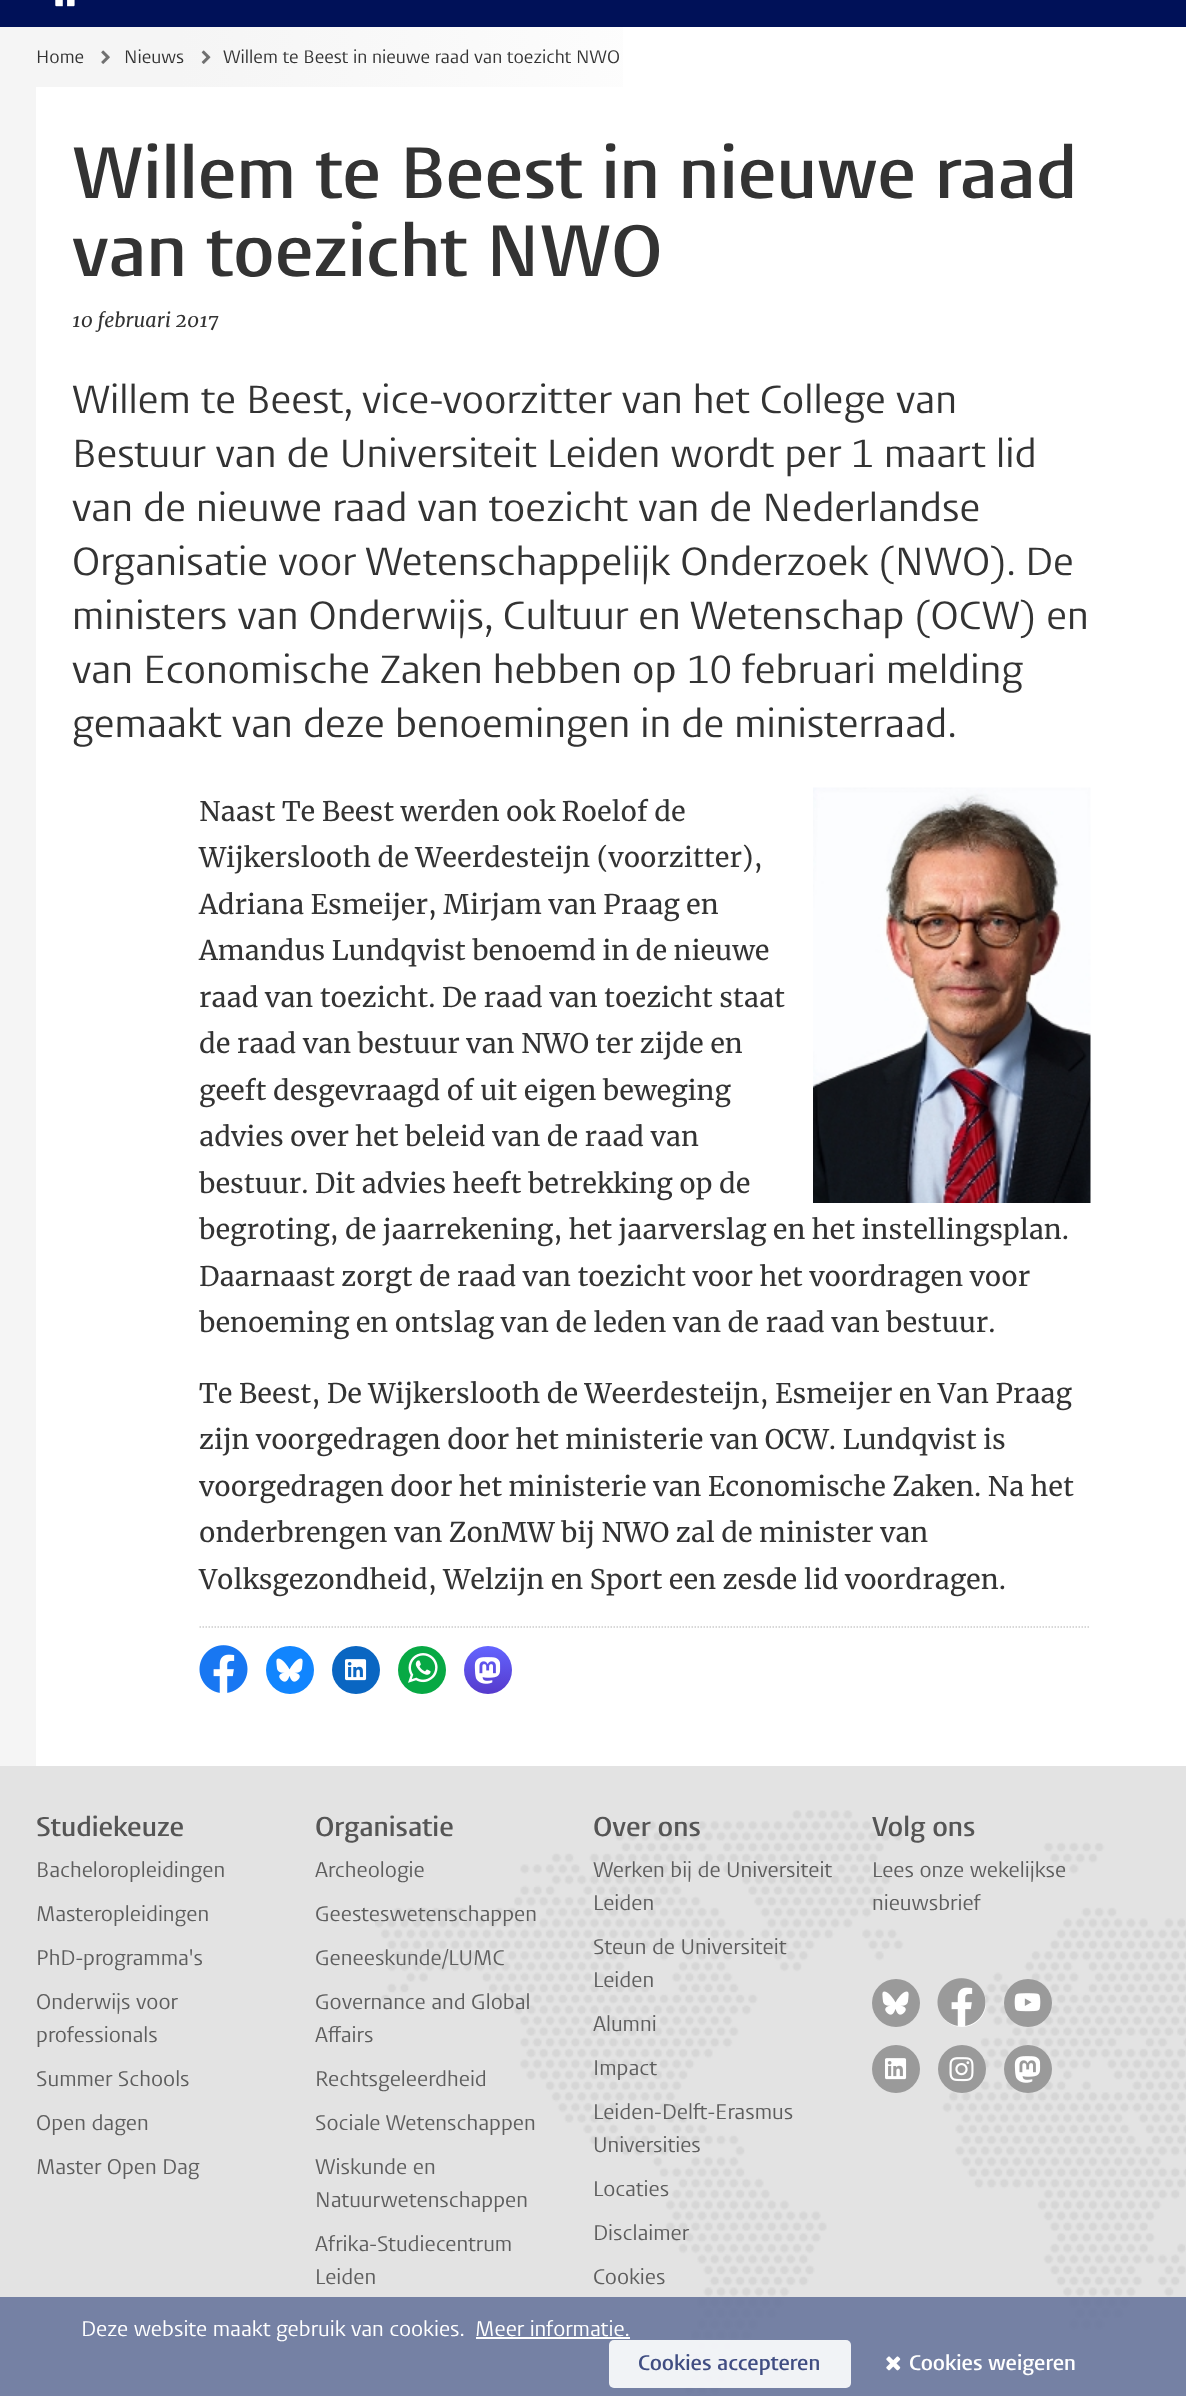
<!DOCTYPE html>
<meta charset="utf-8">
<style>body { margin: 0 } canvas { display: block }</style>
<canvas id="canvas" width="1186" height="2396"></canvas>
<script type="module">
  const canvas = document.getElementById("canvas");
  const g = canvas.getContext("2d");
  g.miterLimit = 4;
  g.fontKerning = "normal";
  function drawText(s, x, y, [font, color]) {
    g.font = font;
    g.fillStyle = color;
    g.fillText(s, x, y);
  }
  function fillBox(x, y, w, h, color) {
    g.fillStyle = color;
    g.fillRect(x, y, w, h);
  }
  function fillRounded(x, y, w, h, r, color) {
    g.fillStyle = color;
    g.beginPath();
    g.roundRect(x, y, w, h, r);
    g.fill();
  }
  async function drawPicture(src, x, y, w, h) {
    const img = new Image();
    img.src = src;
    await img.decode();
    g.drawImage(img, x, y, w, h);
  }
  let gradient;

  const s1 = ["18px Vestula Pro", "#333333"];
  const s2 = ["600 72px Vestula Pro", "#333333"];
  const s3 = ["italic 19.5px Merriweather", "#333333"];
  const s4 = ["39px Vestula Pro", "#333333"];
  const s5 = ["27px Merriweather", "#333333"];
  const s6 = ["600 27px Vestula Pro", "#555555"];
  const s7 = ["21px Vestula Pro", "#5E5E5E"];
  const s8 = ["21px Vestula Pro", "#FFFFFF"];
  const s9 = ["600 21px Vestula Pro", "#404D82"];
  const s10 = ["600 21px Vestula Pro", "#FFFFFF"];

  fillBox(0, 0, 1186, 2396, "#FFFFFF");
  gradient = g.createLinearGradient(0, 1118, 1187, 1118);
  gradient.addColorStop(0, "#F5F5F5");
  gradient.addColorStop(0.15, "#F5F5F5");
  gradient.addColorStop(0.65, "#FFFFFF");
  g.fillStyle = gradient;
  g.fillRect(0, 27, 623, 1739);
  fillBox(0, 0, 1186, 27, "#001158");
  await drawPicture("pic1.png", 55, 0, 20, 7);
  drawText("Home", 36, 63, s1);
  await drawPicture("pic2.png", 101, 50, 9, 14);
  drawText("Nieuws", 124, 63, s1);
  await drawPicture("pic3.png", 201, 50, 10, 14);
  drawText("Willem te Beest in nieuwe raad van toezicht NWO", 223, 63, s1);
  fillBox(36, 87, 587, 1679, "#FFFFFF");
  drawText("Willem te Beest in nieuwe raad", 72, 198, s2);
  drawText("van toezicht NWO", 72, 276, s2);
  drawText("10 februari 2017", 72, 327, s3);
  drawText("Willem te Beest, vice-voorzitter van het College van", 72, 413, s4);
  drawText("Bestuur van de Universiteit Leiden wordt per 1 maart lid", 72, 467, s4);
  drawText("van de nieuwe raad van toezicht van de Nederlandse", 72, 521, s4);
  drawText("Organisatie voor Wetenschappelijk Onderzoek (NWO). De", 72, 575, s4);
  drawText("ministers van Onderwijs, Cultuur en Wetenschap (OCW) en", 72, 629, s4);
  drawText("van Economische Zaken hebben op 10 februari melding", 72, 683, s4);
  drawText("gemaakt van deze benoemingen in de ministerraad.", 72, 737, s4);
  drawText("Naast Te Beest werden ook Roelof de", 199, 821, s5);
  await drawPicture("pic4.png", 813, 787, 278, 416);
  drawText("Wijkerslooth de Weerdesteijn (voorzitter),", 199, 867, s5);
  drawText("Adriana Esmeijer, Mirjam van Praag en", 199, 914, s5);
  drawText("Amandus Lundqvist benoemd in de nieuwe", 199, 960, s5);
  drawText("raad van toezicht. De raad van toezicht staat", 199, 1007, s5);
  drawText("de raad van bestuur van NWO ter zijde en", 199, 1053, s5);
  drawText("geeft desgevraagd of uit eigen beweging", 199, 1100, s5);
  drawText("advies over het beleid van de raad van", 199, 1146, s5);
  drawText("bestuur. Dit advies heeft betrekking op de", 199, 1193, s5);
  drawText("begroting, de jaarrekening, het jaarverslag en het instellingsplan.", 199, 1239, s5);
  drawText("Daarnaast zorgt de raad van toezicht voor het voordragen voor", 199, 1286, s5);
  drawText("benoeming en ontslag van de leden van de raad van bestuur.", 199, 1332, s5);
  drawText("Te Beest, De Wijkerslooth de Weerdesteijn, Esmeijer en Van Praag", 199, 1403, s5);
  drawText("zijn voorgedragen door het ministerie van OCW. Lundqvist is", 199, 1449, s5);
  drawText("voorgedragen door het ministerie van Economische Zaken. Na het", 199, 1496, s5);
  drawText("onderbrengen van ZonMW bij NWO zal de minister van", 199, 1542, s5);
  drawText("Volksgezondheid, Welzijn en Sport een zesde lid voordragen.", 199, 1589, s5);
  g.beginPath();
  g.moveTo(199.5, 1627);
  g.lineTo(1090.5, 1627);
  g.strokeStyle = "#CCCCCC";
  g.lineWidth = 1.5;
  g.setLineDash([1.5, 1.5]);
  g.stroke();
  await drawPicture("pic5.png", 199, 1645, 49, 48);
  g.fillStyle = "#1185FE";
  g.beginPath();
  g.arc(290, 1670, 24, 0, Math.PI * 2);
  g.fill();
  await drawPicture("pic6.png", 276, 1658, 27, 24);
  g.fillStyle = "#0A66C2";
  g.beginPath();
  g.arc(356, 1670, 24, 0, Math.PI * 2);
  g.fill();
  await drawPicture("pic7.png", 345, 1659, 22, 22);
  g.fillStyle = "#07A944";
  g.beginPath();
  g.arc(422, 1670, 24, 0, Math.PI * 2);
  g.fill();
  await drawPicture("pic8.png", 408, 1653, 30, 30);
  gradient = g.createLinearGradient(488, 1646, 488, 1694);
  gradient.addColorStop(0, "#6364FF");
  gradient.addColorStop(1, "#563ACC");
  g.fillStyle = gradient;
  g.beginPath();
  g.arc(488, 1670, 24, 0, Math.PI * 2);
  g.fill();
  await drawPicture("pic9.png", 474, 1657, 27, 27);
  fillBox(0, 1766, 1186, 630, "#E3E3E3");
  await drawPicture("pic10.png", 375, 1810, 811, 586);
  drawText("Studiekeuze", 36, 1836, s6);
  drawText("Bacheloropleidingen", 36, 1877, s7);
  drawText("Masteropleidingen", 36, 1921, s7);
  drawText("PhD-programma's", 36, 1965, s7);
  drawText("Onderwijs voor", 36, 2009, s7);
  drawText("professionals", 36, 2042, s7);
  drawText("Summer Schools", 36, 2086, s7);
  drawText("Open dagen", 36, 2130, s7);
  drawText("Master Open Dag", 36, 2174, s7);
  drawText("Organisatie", 315, 1836, s6);
  drawText("Archeologie", 315, 1877, s7);
  drawText("Geesteswetenschappen", 315, 1921, s7);
  drawText("Geneeskunde/LUMC", 315, 1965, s7);
  drawText("Governance and Global", 315, 2009, s7);
  drawText("Affairs", 315, 2042, s7);
  drawText("Rechtsgeleerdheid", 315, 2086, s7);
  drawText("Sociale Wetenschappen", 315, 2130, s7);
  drawText("Wiskunde en", 315, 2174, s7);
  drawText("Natuurwetenschappen", 315, 2207, s7);
  drawText("Afrika-Studiecentrum", 315, 2251, s7);
  drawText("Leiden", 315, 2284, s7);
  drawText("Over ons", 593, 1836, s6);
  drawText("Werken bij de Universiteit", 593, 1877, s7);
  drawText("Leiden", 593, 1910, s7);
  drawText("Steun de Universiteit", 593, 1954, s7);
  drawText("Leiden", 593, 1987, s7);
  drawText("Alumni", 593, 2031, s7);
  drawText("Impact", 593, 2075, s7);
  drawText("Leiden-Delft-Erasmus", 593, 2119, s7);
  drawText("Universities", 593, 2152, s7);
  drawText("Locaties", 593, 2196, s7);
  drawText("Disclaimer", 593, 2240, s7);
  drawText("Cookies", 593, 2284, s7);
  drawText("Volg ons", 872, 1836, s6);
  drawText("Lees onze wekelijkse", 872, 1877, s7);
  drawText("nieuwsbrief", 872, 1910, s7);
  g.fillStyle = "#9A9A9A";
  g.beginPath();
  g.arc(896, 2003, 24, 0, Math.PI * 2);
  g.fill();
  await drawPicture("pic11.png", 882, 1991, 27, 24);
  g.fillStyle = "#FFFFFF";
  g.beginPath();
  g.arc(962, 2003, 24, 0, Math.PI * 2);
  g.fill();
  await drawPicture("pic12.png", 937, 1978, 49, 48);
  g.fillStyle = "#9A9A9A";
  g.beginPath();
  g.arc(1028, 2003, 24, 0, Math.PI * 2);
  g.fill();
  await drawPicture("pic13.png", 1014, 1993, 27, 19);
  g.beginPath();
  g.arc(896, 2069, 24, 0, Math.PI * 2);
  g.fill();
  await drawPicture("pic14.png", 885, 2058, 22, 22);
  g.beginPath();
  g.arc(962, 2069, 24, 0, Math.PI * 2);
  g.fill();
  await drawPicture("pic15.png", 949, 2057, 25, 25);
  g.beginPath();
  g.arc(1028, 2069, 24, 0, Math.PI * 2);
  g.fill();
  await drawPicture("pic16.png", 1014, 2056, 27, 27);
  fillBox(0, 2297, 1186, 99, "rgba(104, 118, 156, 0.9)");
  drawText("Deze website maakt gebruik van cookies.", 81, 2336, s8);
  drawText("Meer informatie.", 475, 2336, s8);
  fillBox(476, 2337, 154, 2, "#FFFFFF");
  fillRounded(609, 2340, 242, 48, 5, "rgba(255, 255, 255, 0.9)");
  drawText("Cookies accepteren", 638, 2370, s9);
  await drawPicture("pic17.png", 886, 2356, 15, 15);
  drawText("Cookies weigeren", 909, 2370, s10);
</script>
